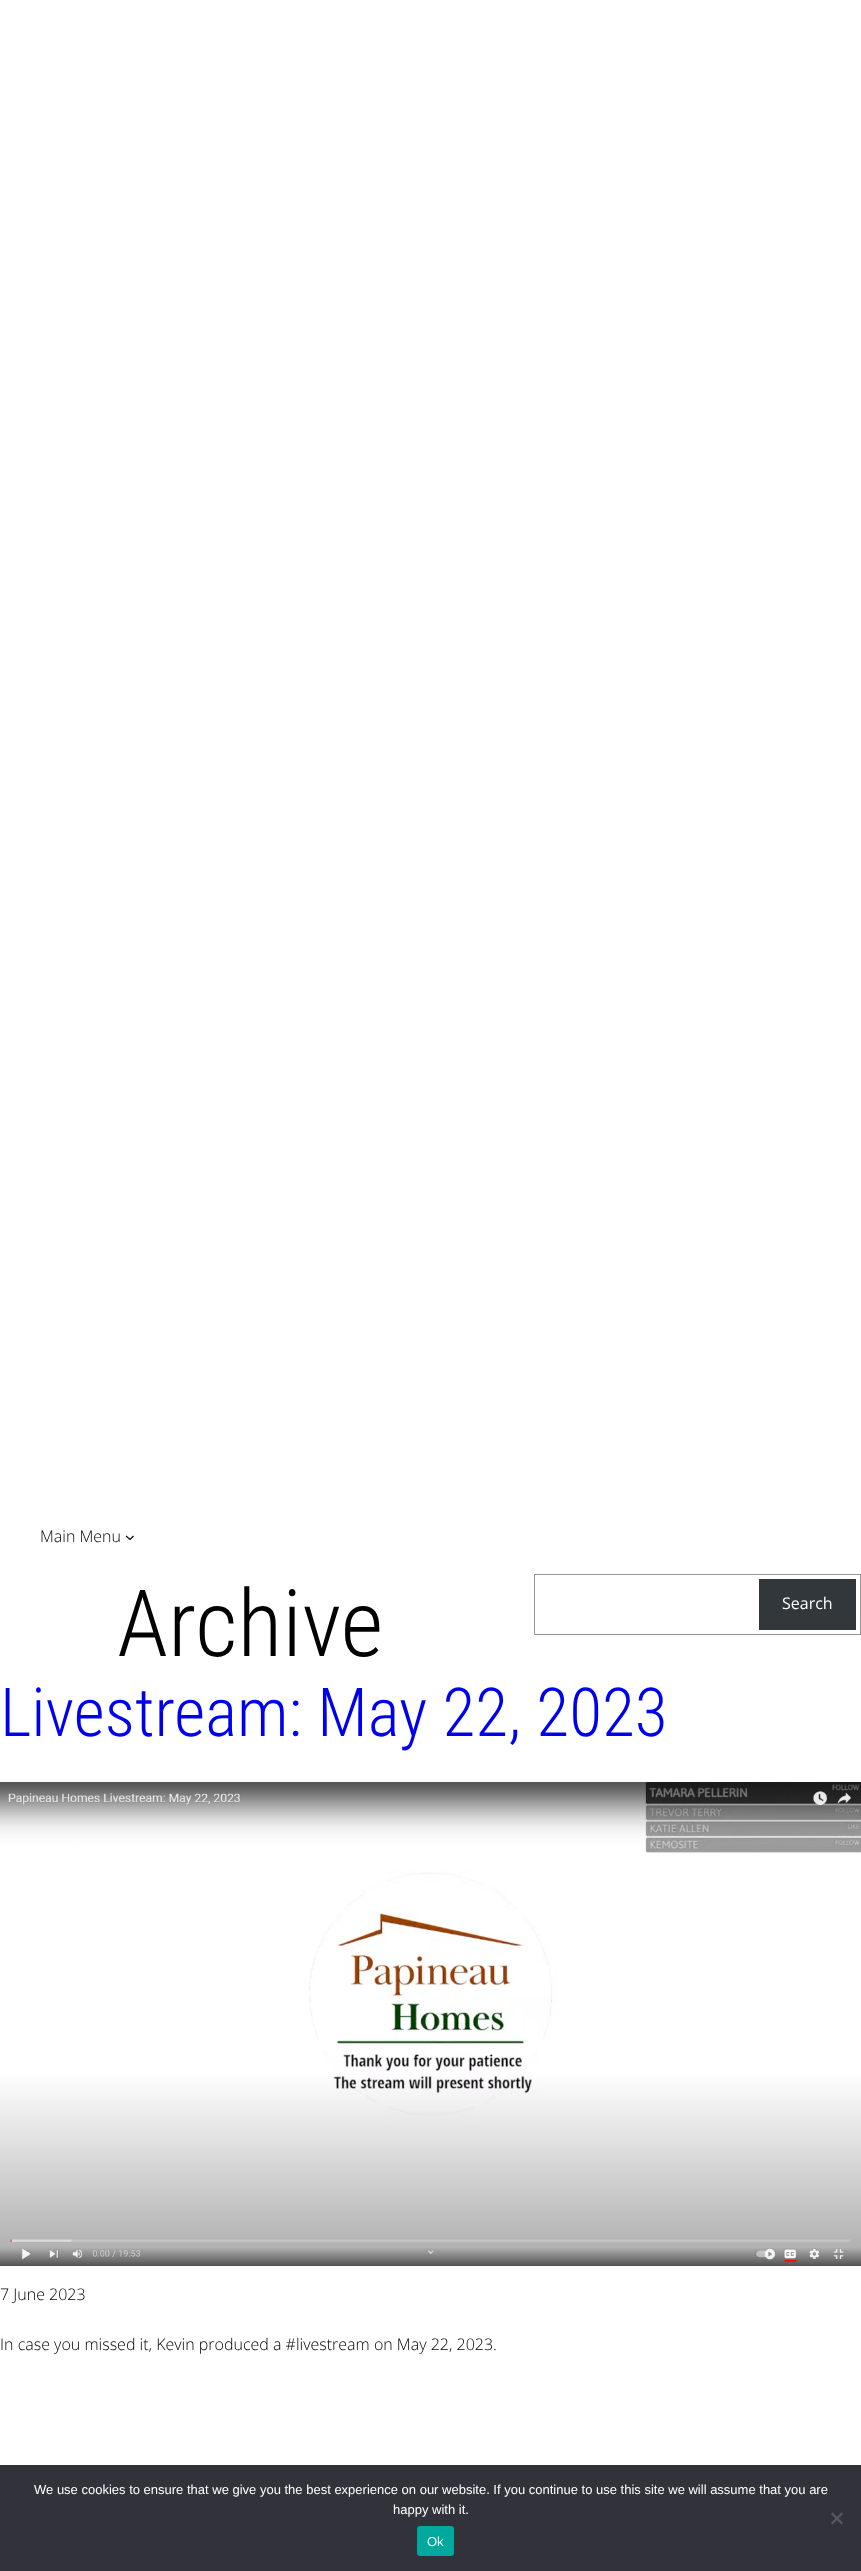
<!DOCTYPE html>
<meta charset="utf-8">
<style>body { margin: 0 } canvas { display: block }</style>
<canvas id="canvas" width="861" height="2571"></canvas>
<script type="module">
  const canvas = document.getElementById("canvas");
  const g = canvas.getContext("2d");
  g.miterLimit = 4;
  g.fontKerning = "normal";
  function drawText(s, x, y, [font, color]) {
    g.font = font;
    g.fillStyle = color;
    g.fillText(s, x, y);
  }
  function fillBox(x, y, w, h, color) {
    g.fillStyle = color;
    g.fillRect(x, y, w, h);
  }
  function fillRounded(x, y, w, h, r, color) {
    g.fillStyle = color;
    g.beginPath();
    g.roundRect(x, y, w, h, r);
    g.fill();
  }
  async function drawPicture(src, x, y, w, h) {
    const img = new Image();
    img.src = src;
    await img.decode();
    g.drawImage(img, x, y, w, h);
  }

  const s1 = ["300 16px Open Sans", "#000000"];
  const s2 = ["16px Open Sans", "#FFFFFF"];
  const s3 = ["300 93px Roboto Condensed", "#000000"];
  const s4 = ["300 67.5px Roboto Condensed", "#0000EE"];
  const s5 = ["13px Liberation Sans", "#FFFFFF"];

  fillBox(0, 0, 861, 2571, "#FFFFFF");
  drawText("Main Menu", 40, 1542, s1);
  g.beginPath();
  g.moveTo(126, 1536);
  g.lineTo(130, 1539.5);
  g.lineTo(133.5, 1536);
  g.strokeStyle = "#000000";
  g.lineWidth = 1.2;
  g.stroke();
  g.strokeStyle = "#949494";
  g.lineWidth = 1;
  g.strokeRect(534.5, 1574.5, 326, 60);
  fillBox(759, 1579, 97, 51, "#32373C");
  drawText("Search", 782, 1609, s2);
  drawText("Archive", 117, 1656, s3);
  drawText("Livestream: May 22, 2023", 0, 1736, s4);
  await drawPicture("pic1.png", 0, 1782, 861, 484);
  drawText("7 June 2023", 0, 2300, s1);
  drawText("In case you missed it, Kevin produced a #livestream on May 22, 2023.", 0, 2350, s1);
  fillBox(0, 2465, 861, 106, "#32323A");
  drawText("We use cookies to ensure that we give you the best experience on our website. If you continue to use this site we will assume that you are", 34, 2494, s5);
  drawText("happy with it.", 393, 2514, s5);
  g.fillStyle = "#59595D";
  g.beginPath();
  g.moveTo(841.5, 2512.5);
  g.lineTo(843, 2514);
  g.lineTo(832.5, 2524.5);
  g.lineTo(831, 2523);
  g.closePath();
  g.fill();
  g.beginPath();
  g.moveTo(831, 2514);
  g.lineTo(832.5, 2512.5);
  g.lineTo(843, 2523);
  g.lineTo(841.5, 2524.5);
  g.closePath();
  g.fill();
  fillRounded(417, 2526, 37, 30, 3, "#00A99D");
  drawText("Ok", 427, 2546, s5);
</script>
